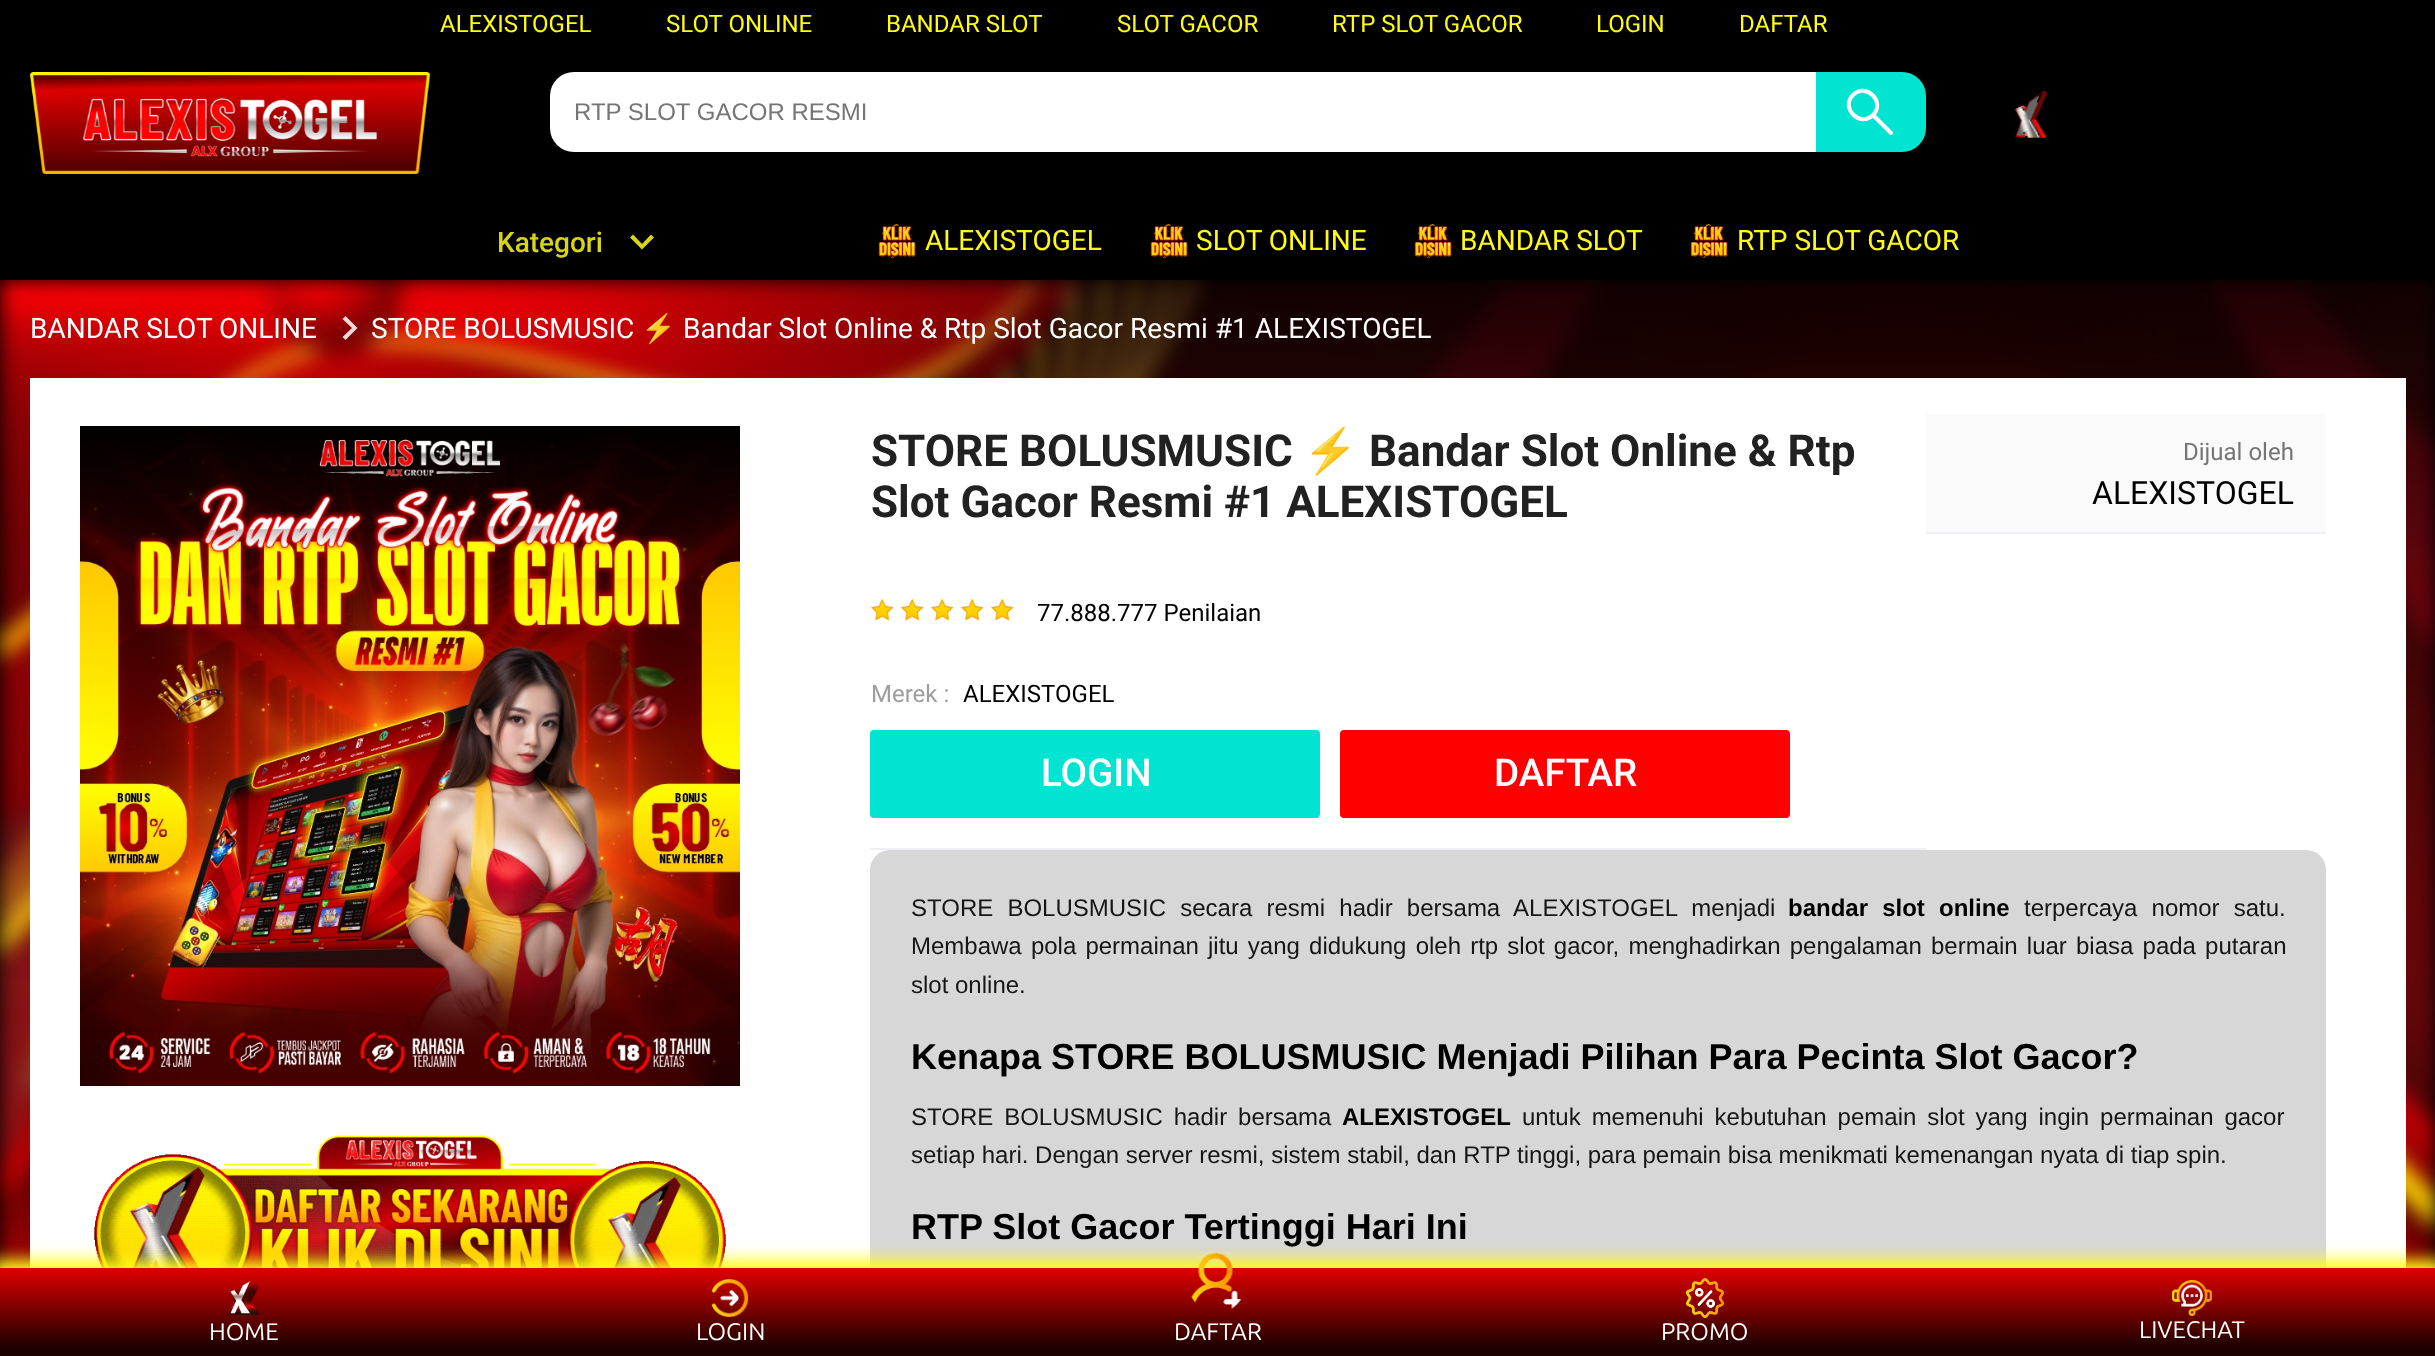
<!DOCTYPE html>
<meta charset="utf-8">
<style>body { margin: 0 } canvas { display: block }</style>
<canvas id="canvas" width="2435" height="1356"></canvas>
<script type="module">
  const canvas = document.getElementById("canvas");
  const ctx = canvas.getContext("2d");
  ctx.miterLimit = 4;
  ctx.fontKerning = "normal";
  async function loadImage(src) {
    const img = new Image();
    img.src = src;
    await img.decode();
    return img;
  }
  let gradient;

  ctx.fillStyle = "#000001";
  ctx.fillRect(0, 0, 2435, 1356);
  ctx.font = "24px Roboto";
  ctx.fillStyle = "#fffb16";
  ctx.fillText("ALEXISTOGEL", 440, 32);
  ctx.fillText("SLOT ONLINE", 666, 32);
  ctx.fillText("BANDAR SLOT", 886, 32);
  ctx.fillText("SLOT GACOR", 1117, 32);
  ctx.fillText("RTP SLOT GACOR", 1332, 32);
  ctx.fillText("LOGIN", 1596, 32);
  ctx.fillText("DAFTAR", 1739, 32);
  ctx.drawImage(await loadImage("img1.png"), 30, 72, 400, 102);
  ctx.fillStyle = "#ffffff";
  ctx.beginPath();
  ctx.roundRect(550, 72, 1266, 80, [24, 0, 0, 24]);
  ctx.fill();
  ctx.font = "24px Liberation Sans";
  ctx.fillStyle = "#757575";
  ctx.fillText("RTP SLOT GACOR RESMI", 574, 120);
  ctx.fillStyle = "#00e4d1";
  ctx.beginPath();
  ctx.roundRect(1816, 72, 110, 80, [0, 24, 24, 0]);
  ctx.fill();
  ctx.beginPath();
  ctx.moveTo(1873, 115);
  ctx.bezierCurveTo(1886, 102, 1866, 82, 1853, 95);
  ctx.bezierCurveTo(1840, 108, 1860, 128, 1873, 115);
  ctx.closePath();
  ctx.moveTo(1873.5, 115.5);
  ctx.lineTo(1891, 133);
  ctx.strokeStyle = "#ffffff";
  ctx.lineWidth = 4;
  ctx.lineCap = "round";
  ctx.lineJoin = "round";
  ctx.stroke();
  ctx.drawImage(await loadImage("img2.png"), 2014, 90, 34, 48);
  ctx.font = "500 28px 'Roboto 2'";
  ctx.fillStyle = "#d9d513";
  ctx.fillText("Kategori", 497, 252);
  ctx.beginPath();
  ctx.moveTo(651, 234.5);
  ctx.lineTo(654, 237.5);
  ctx.lineTo(642, 249.5);
  ctx.lineTo(630, 237.5);
  ctx.lineTo(633, 234.5);
  ctx.lineTo(642, 244);
  ctx.closePath();
  ctx.fill();
  ctx.drawImage(await loadImage("img3.png"), 878, 224, 38, 34);
  ctx.font = "28px Roboto";
  ctx.fillStyle = "#fffb16";
  ctx.fillText("ALEXISTOGEL", 925, 250);
  ctx.drawImage(await loadImage("img4.png"), 1150, 224, 38, 34);
  ctx.fillText("SLOT ONLINE", 1196, 250);
  ctx.drawImage(await loadImage("img3.png"), 1414, 224, 38, 34);
  ctx.fillText("BANDAR SLOT", 1460, 250);
  ctx.drawImage(await loadImage("img4.png"), 1690, 224, 38, 34);
  ctx.fillText("RTP SLOT GACOR", 1737, 250);
  ctx.drawImage(await loadImage("img5.png"), 0, 280, 2435, 988);
  ctx.fillStyle = "#ffffff";
  ctx.fillText("BANDAR SLOT ONLINE", 30, 338);
  ctx.fillStyle = "rgba(255, 255, 255, 0.85)";
  ctx.beginPath();
  ctx.moveTo(342.5, 319);
  ctx.lineTo(345.5, 316);
  ctx.lineTo(357.5, 328);
  ctx.lineTo(345.5, 340);
  ctx.lineTo(342.5, 337);
  ctx.lineTo(352, 328);
  ctx.closePath();
  ctx.fill();
  ctx.fillStyle = "#ffffff";
  ctx.fillText("STORE BOLUSMUSIC", 371, 338);
  ctx.font = "28px Noto Color Emoji";
  ctx.fillText("⚡️", 641, 338);
  ctx.font = "28px Roboto";
  ctx.fillText("Bandar Slot Online & Rtp Slot Gacor Resmi #1 ALEXISTOGEL", 683, 338);
  ctx.fillRect(30, 378, 2376, 890);
  ctx.drawImage(await loadImage("img6.png"), 80, 426, 660, 660);
  ctx.drawImage(await loadImage("img7.png"), 94, 1135, 632, 133);
  ctx.font = "bold 44px Roboto";
  ctx.fillStyle = "#212121";
  ctx.fillText("STORE BOLUSMUSIC", 871, 466);
  ctx.font = "bold 44px Noto Color Emoji";
  ctx.fillText("⚡️", 1303, 466);
  ctx.font = "bold 44px Roboto";
  ctx.fillText("Bandar Slot Online & Rtp", 1369, 466);
  ctx.fillText("Slot Gacor Resmi #1 ALEXISTOGEL", 871, 517);
  ctx.drawImage(await loadImage("img8.png"), 870, 598, 24, 23);
  ctx.drawImage(await loadImage("img8.png"), 900, 598, 24, 23);
  ctx.drawImage(await loadImage("img8.png"), 930, 598, 24, 23);
  ctx.drawImage(await loadImage("img8.png"), 960, 598, 24, 23);
  ctx.drawImage(await loadImage("img8.png"), 990, 598, 24, 23);
  ctx.font = "24px 'Roboto 2'";
  ctx.fillStyle = "#000001";
  ctx.fillText("77.888.777 Penilaian", 1037, 621);
  ctx.fillStyle = "#eff0f5";
  ctx.fillRect(870, 848, 1056, 2);
  ctx.fillStyle = "#9e9e9e";
  ctx.fillText("Merek :", 871, 702);
  ctx.fillStyle = "#000001";
  ctx.fillText("ALEXISTOGEL", 963, 702);
  ctx.fillStyle = "#00e4d1";
  ctx.beginPath();
  ctx.roundRect(871, 731, 448, 86, 3);
  ctx.fill();
  ctx.strokeStyle = "#00e4d1";
  ctx.lineWidth = 2;
  ctx.lineJoin = "miter";
  ctx.stroke();
  ctx.font = "500 38.5px Roboto";
  ctx.fillStyle = "#ffffff";
  ctx.fillText("LOGIN", 1041, 786);
  ctx.fillStyle = "#ff0000";
  ctx.beginPath();
  ctx.roundRect(1341, 731, 448, 86, 3);
  ctx.fill();
  ctx.strokeStyle = "#ff0000";
  ctx.stroke();
  ctx.fillStyle = "#ffffff";
  ctx.fillText("DAFTAR", 1494, 786);
  ctx.fillStyle = "#fafafa";
  ctx.fillRect(1926, 414, 400, 118);
  ctx.font = "24px 'Roboto 2'";
  ctx.fillStyle = "#757575";
  ctx.fillText("Dijual oleh", 2183, 460);
  ctx.font = "32px 'Roboto 2'";
  ctx.fillStyle = "#000001";
  ctx.fillText("ALEXISTOGEL", 2092, 504);
  ctx.fillStyle = "#eff0f5";
  ctx.fillRect(1926, 532, 400, 2);
  ctx.fillStyle = "#d7d7d7";
  ctx.beginPath();
  ctx.roundRect(870, 850, 1456, 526, 20);
  ctx.fill();
  ctx.wordSpacing = "7.5px";
  ctx.font = "24px Liberation Sans";
  ctx.fillStyle = "#161616";
  ctx.fillText("STORE BOLUSMUSIC secara resmi hadir bersama ALEXISTOGEL menjadi", 911, 916);
  ctx.font = "bold 24px Liberation Sans";
  ctx.fillStyle = "#000001";
  ctx.fillText("bandar slot online", 1788, 916);
  ctx.font = "24px Liberation Sans";
  ctx.fillStyle = "#161616";
  ctx.fillText("terpercaya nomor satu.", 2024, 916);
  ctx.wordSpacing = "2.5px";
  ctx.fillText("Membawa pola permainan jitu yang didukung oleh rtp slot gacor, menghadirkan pengalaman bermain luar biasa pada putaran", 911, 954);
  ctx.wordSpacing = "0px";
  ctx.fillText("slot online.", 911, 993);
  ctx.font = "bold 36px Liberation Sans";
  ctx.fillStyle = "#000001";
  ctx.fillText("Kenapa STORE BOLUSMUSIC Menjadi Pilihan Para Pecinta Slot Gacor?", 911, 1069);
  ctx.wordSpacing = "4.25px";
  ctx.font = "24px Liberation Sans";
  ctx.fillStyle = "#161616";
  ctx.fillText("STORE BOLUSMUSIC hadir bersama", 911, 1125);
  ctx.wordSpacing = "0px";
  ctx.font = "bold 24px Liberation Sans";
  ctx.fillStyle = "#000001";
  ctx.fillText("ALEXISTOGEL", 1342, 1125);
  ctx.wordSpacing = "4.25px";
  ctx.font = "24px Liberation Sans";
  ctx.fillStyle = "#161616";
  ctx.fillText("untuk memenuhi kebutuhan pemain slot yang ingin permainan gacor", 1522, 1125);
  ctx.wordSpacing = "0px";
  ctx.fillText("setiap hari. Dengan server resmi, sistem stabil, dan RTP tinggi, para pemain bisa menikmati kemenangan nyata di tiap spin.", 911, 1163);
  ctx.font = "bold 36px Liberation Sans";
  ctx.fillStyle = "#000001";
  ctx.fillText("RTP Slot Gacor Tertinggi Hari Ini", 911, 1239);
  ctx.fillStyle = "#fffb15";
  ctx.filter = "blur(8px)";
  ctx.beginPath();
  ctx.rect(-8, 1260, 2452, 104);
  ctx.fill();
  ctx.filter = "none";
  gradient = ctx.createLinearGradient(1218, 1268, 1218, 1356);
  gradient.addColorStop(0, "#e00000");
  gradient.addColorStop(0.9, "#1d0000");
  ctx.fillStyle = gradient;
  ctx.fillRect(0, 1268, 2435, 88);
  ctx.drawImage(await loadImage("img9.png"), 228, 1280, 32, 35);
  ctx.font = "24px Ubuntu";
  ctx.fillStyle = "#ffffff";
  ctx.fillText("HOME", 209, 1340);
  ctx.drawImage(await loadImage("img10.png"), 711, 1279, 38, 39);
  ctx.fillText("LOGIN", 696, 1340);
  ctx.drawImage(await loadImage("img11.png"), 1191, 1253, 51, 56);
  ctx.fillText("DAFTAR", 1174, 1340);
  ctx.drawImage(await loadImage("img12.png"), 1686, 1278, 38, 40);
  ctx.fillText("PROMO", 1661, 1340);
  ctx.drawImage(await loadImage("img13.png"), 2172, 1280, 40, 36);
  ctx.fillText("LIVECHAT", 2139, 1338);
</script>
